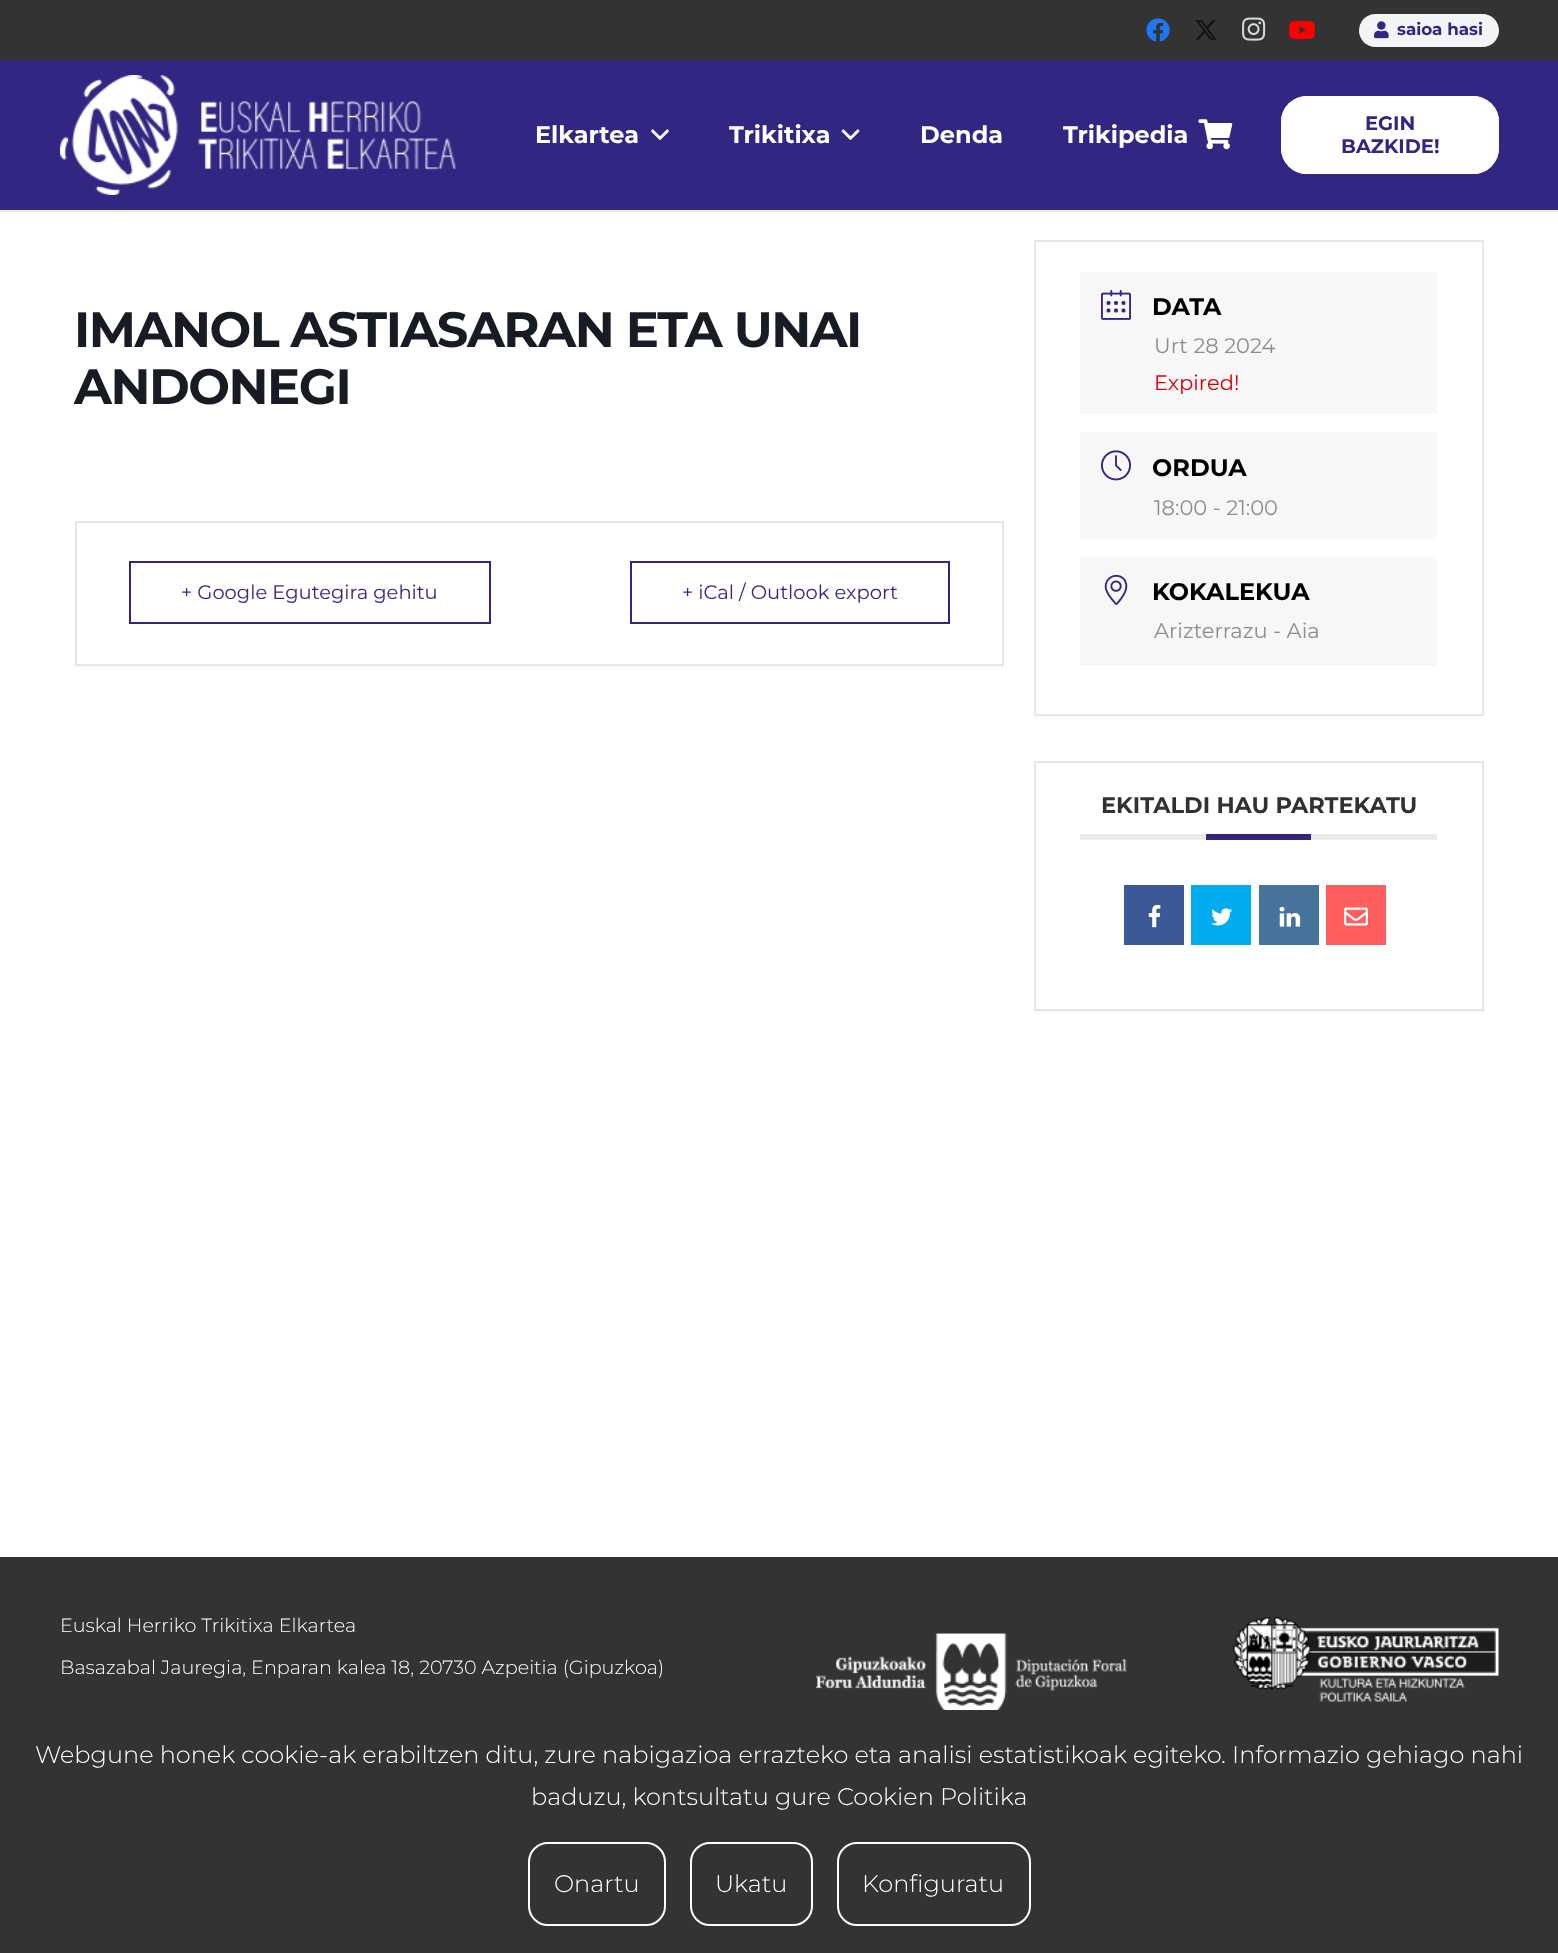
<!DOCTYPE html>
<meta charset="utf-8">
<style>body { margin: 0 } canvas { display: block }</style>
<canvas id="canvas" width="1558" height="1953"></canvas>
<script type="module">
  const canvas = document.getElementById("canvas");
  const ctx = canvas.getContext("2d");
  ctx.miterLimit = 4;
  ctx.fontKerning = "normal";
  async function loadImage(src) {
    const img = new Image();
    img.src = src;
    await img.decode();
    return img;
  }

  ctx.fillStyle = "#ffffff";
  ctx.fillRect(0, 0, 1558, 1953);
  ctx.fillStyle = "#333333";
  ctx.fillRect(0, 0, 1558, 60);
  ctx.drawImage(await loadImage("img1.png"), 1146, 18, 24, 24);
  ctx.drawImage(await loadImage("img2.png"), 1195, 20, 22, 20);
  ctx.drawImage(await loadImage("img3.png"), 1242, 17, 24, 24);
  ctx.drawImage(await loadImage("img4.png"), 1289, 21, 26, 18);
  ctx.fillStyle = "#f2f4f5";
  ctx.beginPath();
  ctx.roundRect(1359, 14, 140, 33, 16.5);
  ctx.fill();
  ctx.drawImage(await loadImage("img5.png"), 1374, 21, 15, 18);
  ctx.font = "bold 16.75px Montserrat";
  ctx.fillStyle = "#312682";
  ctx.fillText("saioa hasi", 1397, 35);
  ctx.fillStyle = "#ebebeb";
  ctx.beginPath();
  ctx.moveTo(0, 210);
  ctx.lineTo(0, 212);
  ctx.lineTo(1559, 212);
  ctx.lineTo(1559, 62);
  ctx.lineTo(1558, 62);
  ctx.lineTo(1558, 210);
  ctx.closePath();
  ctx.fill();
  ctx.fillStyle = "#312682";
  ctx.fillRect(0, 60, 1558, 150);
  ctx.drawImage(await loadImage("img6.png"), 60, 75, 396, 120);
  ctx.font = "bold 24px Montserrat";
  ctx.fillStyle = "#ffffff";
  ctx.fillText("Elkartea", 535, 143);
  ctx.drawImage(await loadImage("img7.png"), 651, 129, 18, 11);
  ctx.fillText("Trikitixa", 729, 143);
  ctx.drawImage(await loadImage("img8.png"), 841, 129, 19, 11);
  ctx.fillText("Denda", 920, 143);
  ctx.fillText("Trikipedia", 1063, 143);
  ctx.drawImage(await loadImage("img9.png"), 1198, 119, 35, 31);
  ctx.beginPath();
  ctx.roundRect(1281, 96, 218, 78, 26);
  ctx.fill();
  ctx.beginPath();
  ctx.roundRect(1282, 97, 216, 76, 25);
  ctx.strokeStyle = "#ffffff";
  ctx.lineWidth = 2;
  ctx.stroke();
  ctx.font = "bold 19.5px Montserrat";
  ctx.fillStyle = "#312682";
  ctx.fillText("EGIN", 1365, 130);
  ctx.fillText("BAZKIDE!", 1341, 153);
  ctx.letterSpacing = "-1.5px";
  ctx.font = "bold 49.5px Montserrat";
  ctx.fillStyle = "#171c24";
  ctx.fillText("IMANOL ASTIASARAN ETA UNAI", 74, 347);
  ctx.fillText("ANDONEGI", 74, 404);
  ctx.fillStyle = "#fbfbfb";
  ctx.beginPath();
  ctx.moveTo(75, 666);
  ctx.lineTo(75, 669);
  ctx.lineTo(1004, 669);
  ctx.lineTo(1004, 524);
  ctx.lineTo(1004, 666);
  ctx.closePath();
  ctx.fill();
  ctx.strokeStyle = "#e6e6e6";
  ctx.strokeRect(76, 522, 927, 143);
  ctx.strokeStyle = "#312682";
  ctx.strokeRect(130, 562, 360, 61);
  ctx.letterSpacing = "0px";
  ctx.font = "19.5px Montserrat";
  ctx.fillStyle = "#312682";
  ctx.fillText("+ Google Egutegira gehitu", 181, 599);
  ctx.strokeRect(631, 562, 318, 61);
  ctx.fillText("+ iCal / Outlook export", 682, 599);
  ctx.fillStyle = "#fbfbfb";
  ctx.beginPath();
  ctx.moveTo(1034, 716);
  ctx.lineTo(1034, 719);
  ctx.lineTo(1484, 719);
  ctx.lineTo(1484, 243);
  ctx.lineTo(1484, 716);
  ctx.closePath();
  ctx.fill();
  ctx.strokeStyle = "#e6e6e6";
  ctx.strokeRect(1035, 241, 448, 474);
  ctx.fillStyle = "#f7f7f7";
  ctx.fillRect(1080, 272, 357, 142);
  ctx.drawImage(await loadImage("img10.png"), 1101, 289, 30, 31);
  ctx.font = "bold 24px Montserrat";
  ctx.fillStyle = "#000000";
  ctx.fillText("DATA", 1152, 315);
  ctx.font = "21px Montserrat";
  ctx.fillStyle = "#8d8d8d";
  ctx.fillText("Urt 28 2024", 1154, 353);
  ctx.fillStyle = "#d8000c";
  ctx.fillText("Expired!", 1154, 390);
  ctx.fillStyle = "#f7f7f7";
  ctx.fillRect(1080, 432, 357, 107);
  ctx.drawImage(await loadImage("img11.png"), 1101, 450, 30, 31);
  ctx.font = "bold 24px Montserrat";
  ctx.fillStyle = "#000000";
  ctx.fillText("ORDUA", 1152, 476);
  ctx.font = "21px Montserrat";
  ctx.fillStyle = "#8d8d8d";
  ctx.fillText("18:00 - 21:00", 1154, 515);
  ctx.fillStyle = "#f7f7f7";
  ctx.fillRect(1080, 557, 357, 109);
  ctx.drawImage(await loadImage("img12.png"), 1104, 574, 24, 31);
  ctx.font = "bold 24px Montserrat";
  ctx.fillStyle = "#000000";
  ctx.fillText("KOKALEKUA", 1152, 600);
  ctx.font = "21px Montserrat";
  ctx.fillStyle = "#8d8d8d";
  ctx.fillText("Arizterrazu - Aia", 1154, 638);
  ctx.fillStyle = "#fbfbfb";
  ctx.beginPath();
  ctx.moveTo(1034, 1011);
  ctx.lineTo(1034, 1014);
  ctx.lineTo(1484, 1014);
  ctx.lineTo(1484, 764);
  ctx.lineTo(1484, 1011);
  ctx.closePath();
  ctx.fill();
  ctx.strokeRect(1035, 762, 448, 248);
  ctx.fillStyle = "#ebebeb";
  ctx.fillRect(1080, 834, 357, 6);
  ctx.font = "bold 22.5px Montserrat";
  ctx.fillStyle = "#313131";
  ctx.fillText("EKITALDI HAU PARTEKATU", 1101, 813);
  ctx.fillStyle = "#312682";
  ctx.fillRect(1206, 834, 105, 6);
  ctx.fillStyle = "#3b5996";
  ctx.fillRect(1124, 885, 60, 60);
  ctx.drawImage(await loadImage("img13.png"), 1148, 904, 13, 24);
  ctx.fillStyle = "#00acee";
  ctx.fillRect(1191, 885, 60, 60);
  ctx.drawImage(await loadImage("img14.png"), 1211, 908, 21, 18);
  ctx.fillStyle = "#457399";
  ctx.fillRect(1259, 885, 60, 60);
  ctx.drawImage(await loadImage("img15.png"), 1279, 906, 22, 21);
  ctx.fillStyle = "#ff5d5e";
  ctx.fillRect(1326, 885, 60, 60);
  ctx.drawImage(await loadImage("img16.png"), 1344, 907, 24, 19);
  ctx.fillStyle = "#333333";
  ctx.fillRect(0, 1557, 1558, 396);
  ctx.font = "300 19.2px Montserrat";
  ctx.fillStyle = "#ffffff";
  ctx.fillText("Euskal Herriko Trikitixa Elkartea", 60, 1632);
  ctx.fillText("Basazabal Jauregia, Enparan kalea 18, 20730 Azpeitia (Gipuzkoa)", 60, 1674);
  ctx.drawImage(await loadImage("img17.png"), 816, 1633, 311, 77);
  ctx.drawImage(await loadImage("img18.png"), 1233, 1617, 266, 85);
  ctx.font = "300 24px Montserrat";
  ctx.fillText("Webgune honek cookie-ak erabiltzen ditu, zure nabigazioa errazteko eta analisi estatistikoak egiteko. Informazio gehiago nahi", 35, 1763);
  ctx.fillText("baduzu, kontsultatu gure Cookien Politika", 531, 1805);
  ctx.beginPath();
  ctx.roundRect(529, 1843, 136, 82, 19);
  ctx.strokeStyle = "#ffffff";
  ctx.stroke();
  ctx.fillText("Onartu", 554, 1892);
  ctx.beginPath();
  ctx.roundRect(691, 1843, 121, 82, 19);
  ctx.stroke();
  ctx.fillText("Ukatu", 715, 1892);
  ctx.beginPath();
  ctx.roundRect(838, 1843, 192, 82, 19);
  ctx.stroke();
  ctx.fillText("Konfiguratu", 862, 1892);
</script>
